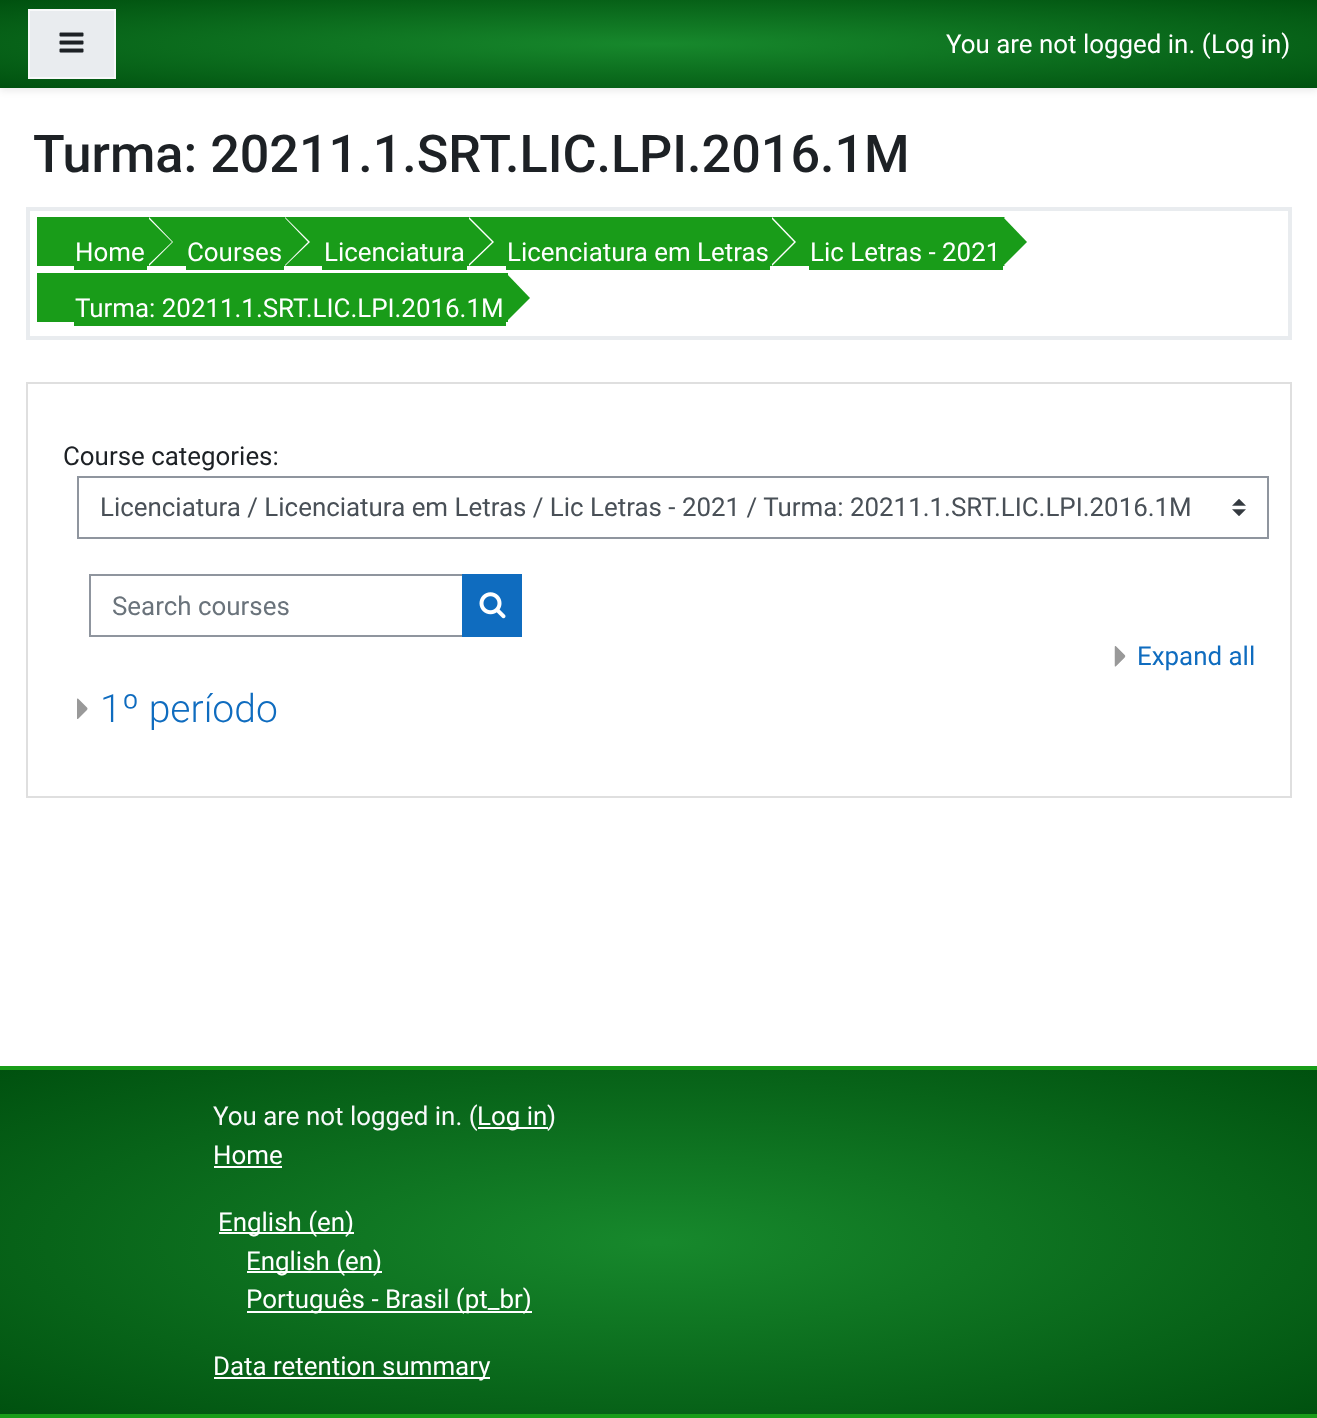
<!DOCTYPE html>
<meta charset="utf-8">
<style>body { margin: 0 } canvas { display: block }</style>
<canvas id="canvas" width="1317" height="1418"></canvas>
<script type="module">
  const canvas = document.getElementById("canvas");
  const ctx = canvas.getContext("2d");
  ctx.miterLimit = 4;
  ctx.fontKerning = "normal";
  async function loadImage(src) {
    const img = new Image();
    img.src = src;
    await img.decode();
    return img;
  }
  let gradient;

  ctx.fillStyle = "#ffffff";
  ctx.fillRect(0, 0, 1317, 1418);
  ctx.fillStyle = "rgba(0, 0, 0, 0.08)";
  ctx.filter = "blur(3.5px)";
  ctx.beginPath();
  ctx.rect(0, 4, 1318, 87);
  ctx.fill();
  ctx.filter = "none";
  gradient = ctx.createRadialGradient(659, 661.42, 0, 659, 661.42, 932);
  gradient.addColorStop(0.01, "#17882c");
  gradient.addColorStop(1, "#00510f");
  ctx.fillStyle = gradient;
  ctx.beginPath();
  ctx.rect(0, 0, 1317, 88);
  ctx.save();
  ctx.clip();
  ctx.scale(1, 62 / 932);
  ctx.fillRect(0, 0, 1317, 21316);
  ctx.restore();
  ctx.fillStyle = "#e9ecef";
  ctx.beginPath();
  ctx.rect(29, 10, 86, 68);
  ctx.fill();
  ctx.strokeStyle = "#f8f9fa";
  ctx.lineWidth = 2;
  ctx.stroke();
  ctx.drawImage(await loadImage("img1.png"), 59, 32, 25, 21);
  ctx.font = "25.9px Roboto";
  ctx.fillStyle = "#ffffff";
  ctx.fillText("You are not logged in. (", 946, 53);
  ctx.fillText("Log in)", 1211, 53);
  ctx.font = "500 52.1px Roboto";
  ctx.fillStyle = "#1d2125";
  ctx.fillText("Turma: 20211.1.SRT.LIC.LPI.2016.1M", 33, 172);
  ctx.strokeStyle = "#e9ecef";
  ctx.lineWidth = 4;
  ctx.strokeRect(28, 209, 1262, 129);
  ctx.fillStyle = "#199c19";
  ctx.fillRect(37, 217, 968, 49);
  ctx.fillStyle = "#ffffff";
  ctx.beginPath();
  ctx.moveTo(149, 266);
  ctx.lineTo(149, 217);
  ctx.lineTo(173, 242);
  ctx.closePath();
  ctx.fill();
  ctx.fillStyle = "#199c19";
  ctx.beginPath();
  ctx.moveTo(147, 266);
  ctx.lineTo(147, 217);
  ctx.lineTo(172, 242);
  ctx.closePath();
  ctx.fill();
  ctx.font = "25.9px Roboto";
  ctx.fillStyle = "#ffffff";
  ctx.fillText("Home", 75, 261);
  ctx.fillStyle = "#199c19";
  ctx.fillRect(74, 266, 73, 4);
  ctx.fillStyle = "#ffffff";
  ctx.beginPath();
  ctx.moveTo(285, 266);
  ctx.lineTo(285, 217);
  ctx.lineTo(310, 242);
  ctx.closePath();
  ctx.fill();
  ctx.fillStyle = "#199c19";
  ctx.beginPath();
  ctx.moveTo(284, 266);
  ctx.lineTo(284, 217);
  ctx.lineTo(308, 242);
  ctx.closePath();
  ctx.fill();
  ctx.fillStyle = "#ffffff";
  ctx.fillText("Courses", 187, 261);
  ctx.fillStyle = "#199c19";
  ctx.fillRect(186, 266, 98, 4);
  ctx.fillStyle = "#ffffff";
  ctx.beginPath();
  ctx.moveTo(469, 266);
  ctx.lineTo(469, 217);
  ctx.lineTo(494, 242);
  ctx.closePath();
  ctx.fill();
  ctx.fillStyle = "#199c19";
  ctx.beginPath();
  ctx.moveTo(467, 266);
  ctx.lineTo(467, 217);
  ctx.lineTo(492, 242);
  ctx.closePath();
  ctx.fill();
  ctx.fillStyle = "#ffffff";
  ctx.fillText("Licenciatura", 324, 261);
  ctx.fillStyle = "#199c19";
  ctx.fillRect(322, 266, 145, 4);
  ctx.fillStyle = "#ffffff";
  ctx.beginPath();
  ctx.moveTo(772, 266);
  ctx.lineTo(772, 217);
  ctx.lineTo(796, 242);
  ctx.closePath();
  ctx.fill();
  ctx.fillStyle = "#199c19";
  ctx.beginPath();
  ctx.moveTo(770, 266);
  ctx.lineTo(770, 217);
  ctx.lineTo(794, 242);
  ctx.closePath();
  ctx.fill();
  ctx.fillStyle = "#ffffff";
  ctx.fillText("Licenciatura em Letras", 507, 261);
  ctx.fillStyle = "#199c19";
  ctx.fillRect(506, 266, 264, 4);
  ctx.fillStyle = "#ffffff";
  ctx.beginPath();
  ctx.moveTo(1004, 266);
  ctx.lineTo(1004, 217);
  ctx.lineTo(1029, 242);
  ctx.closePath();
  ctx.fill();
  ctx.fillStyle = "#199c19";
  ctx.beginPath();
  ctx.moveTo(1003, 266);
  ctx.lineTo(1003, 217);
  ctx.lineTo(1027, 242);
  ctx.closePath();
  ctx.fill();
  ctx.fillStyle = "#ffffff";
  ctx.fillText("Lic Letras - 2021", 810, 261);
  ctx.fillStyle = "#199c19";
  ctx.fillRect(809, 266, 194, 4);
  ctx.fillRect(37, 273, 471, 49);
  ctx.fillStyle = "#ffffff";
  ctx.fillText("Turma: 20211.1.SRT.LIC.LPI.2016.1M", 75, 317);
  ctx.fillStyle = "#199c19";
  ctx.fillRect(74, 322, 432, 4);
  ctx.beginPath();
  ctx.moveTo(506, 322);
  ctx.lineTo(506, 273);
  ctx.lineTo(530, 298);
  ctx.closePath();
  ctx.fill();
  ctx.strokeStyle = "#dfdfdf";
  ctx.lineWidth = 2;
  ctx.strokeRect(27, 383, 1264, 414);
  ctx.fillStyle = "#1d2125";
  ctx.fillText("Course categories:", 63, 465);
  ctx.drawImage(await loadImage("img2.png"), 1232, 499, 14, 17);
  ctx.strokeStyle = "#8f959e";
  ctx.strokeRect(78, 477, 1190, 61);
  ctx.fillStyle = "#495057";
  ctx.fillText("Licenciatura / Licenciatura em Letras / Lic Letras - 2021 / Turma: 20211.1.SRT.LIC.LPI.2016.1M", 100, 516);
  ctx.strokeRect(90, 575, 373, 61);
  ctx.fillStyle = "#6a737b";
  ctx.fillText("Search courses", 112, 615);
  ctx.fillStyle = "#0f6cbf";
  ctx.fillRect(462, 574, 60, 63);
  ctx.drawImage(await loadImage("img3.png"), 479, 592, 27, 27);
  ctx.drawImage(await loadImage("img4.png"), 1114, 646, 12, 21);
  ctx.fillText("Expand all", 1137, 665);
  ctx.drawImage(await loadImage("img5.png"), 77, 698, 11, 21);
  ctx.font = "300 39px Roboto";
  ctx.fillText("1º período", 100, 722);
  gradient = ctx.createRadialGradient(659, 4744.03, 0, 659, 4744.03, 932);
  gradient.addColorStop(0.01, "#17882c");
  gradient.addColorStop(1, "#00510f");
  ctx.fillStyle = gradient;
  ctx.beginPath();
  ctx.rect(0, 1070, 1317, 344);
  ctx.save();
  ctx.clip();
  ctx.scale(1, 244 / 932);
  ctx.fillRect(0, 0, 1317, 5417);
  ctx.restore();
  ctx.fillStyle = "#199c19";
  ctx.fillRect(0, 1066, 1317, 4);
  ctx.fillRect(0, 1414, 1317, 4);
  ctx.font = "25.9px Roboto";
  ctx.fillStyle = "#f8f9fa";
  ctx.fillText("You are not logged in. (", 213, 1125);
  ctx.fillStyle = "#ffffff";
  ctx.fillRect(478, 1127, 70, 2);
  ctx.fillText("Log in", 477, 1125);
  ctx.fillStyle = "#f8f9fa";
  ctx.fillText(")", 547, 1125);
  ctx.fillStyle = "#ffffff";
  ctx.fillText("Home", 213, 1164);
  ctx.fillRect(214, 1166, 68, 2);
  ctx.fillRect(219, 1232, 135, 2);
  ctx.fillText("English (en)", 218, 1231);
  ctx.fillRect(247, 1271, 135, 2);
  ctx.fillText("English (en)", 246, 1270);
  ctx.fillRect(247, 1311, 285, 2);
  ctx.fillText("Português - Brasil (pt_br)", 246, 1308);
  ctx.fillRect(214, 1377, 276, 2);
  ctx.fillText("Data retention summary", 213, 1375);
</script>
